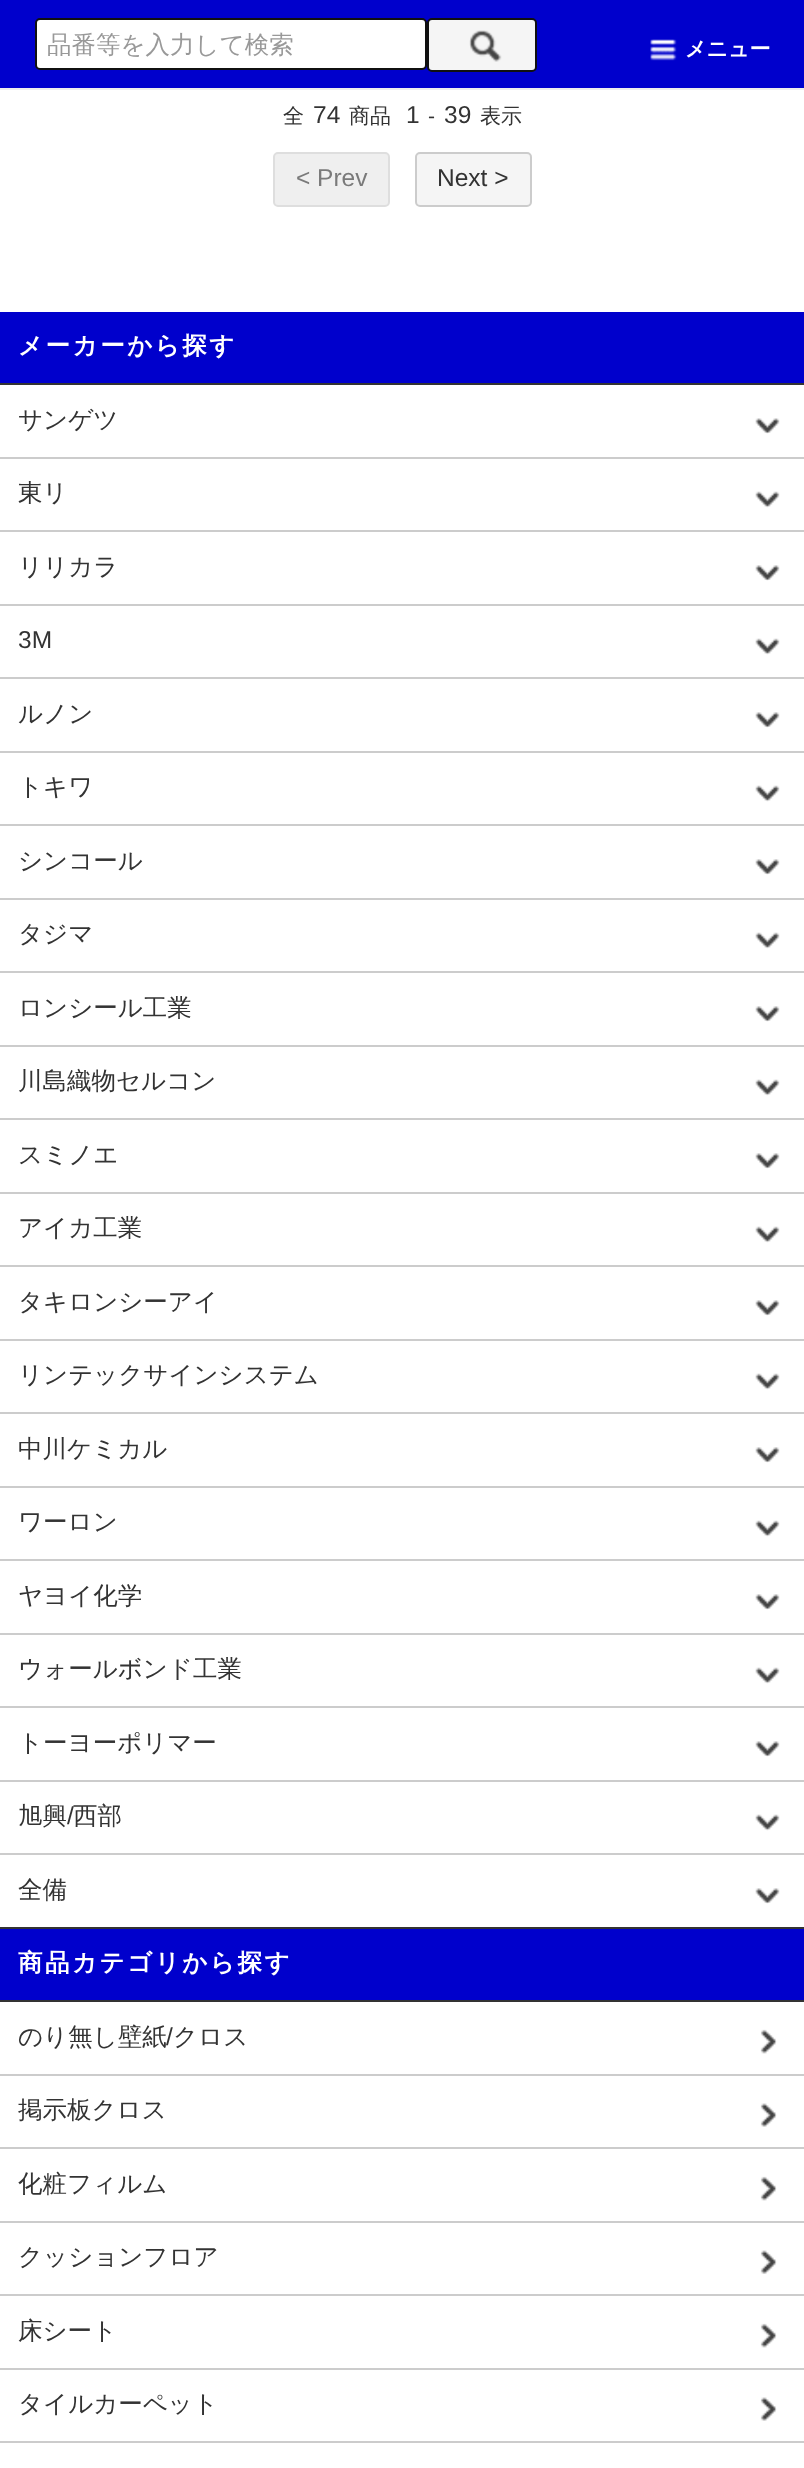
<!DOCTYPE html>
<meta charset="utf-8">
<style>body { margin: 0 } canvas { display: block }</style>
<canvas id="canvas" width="804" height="2468"></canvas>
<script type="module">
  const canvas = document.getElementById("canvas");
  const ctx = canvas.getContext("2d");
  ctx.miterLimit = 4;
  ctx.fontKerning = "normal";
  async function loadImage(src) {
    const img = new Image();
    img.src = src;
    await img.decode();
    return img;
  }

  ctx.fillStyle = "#ffffff";
  ctx.fillRect(0, 0, 804, 2468);
  ctx.fillStyle = "#0000cc";
  ctx.fillRect(0, 0, 804, 88);
  ctx.fillStyle = "#eeeeee";
  ctx.fillRect(0, 88, 804, 2);
  ctx.fillStyle = "#ffffff";
  ctx.beginPath();
  ctx.roundRect(36, 19, 390, 50, 4);
  ctx.fill();
  ctx.strokeStyle = "#101010";
  ctx.lineWidth = 2;
  ctx.stroke();
  ctx.font = "500 24.5px WenQuanYi Zen Hei";
  ctx.fillStyle = "#999999";
  ctx.fillText("品番等を入力して検索", 47, 53);
  ctx.fillStyle = "#f5f5f5";
  ctx.beginPath();
  ctx.roundRect(428, 19, 108, 52, 4);
  ctx.fill();
  ctx.stroke();
  ctx.drawImage(await loadImage("img1.png"), 469, 30, 33, 32);
  ctx.drawImage(await loadImage("img2.png"), 650, 39, 27, 22);
  ctx.font = "bold 21px WenQuanYi Zen Hei";
  ctx.fillStyle = "#ffffff";
  ctx.fillText("メニュー", 685, 56);
  ctx.font = "500 21px WenQuanYi Zen Hei";
  ctx.fillStyle = "#333333";
  ctx.fillText("全", 283, 123);
  ctx.font = "24.5px Liberation Sans";
  ctx.fillText("74", 313, 123);
  ctx.font = "500 21px WenQuanYi Zen Hei";
  ctx.fillText("商品", 349, 123);
  ctx.font = "24.5px Liberation Sans";
  ctx.fillText("1", 406, 123);
  ctx.font = "21px Liberation Sans";
  ctx.fillText("-", 428, 123);
  ctx.font = "24.5px Liberation Sans";
  ctx.fillText("39", 444, 123);
  ctx.font = "500 21px WenQuanYi Zen Hei";
  ctx.fillText("表示", 480, 123);
  ctx.fillStyle = "#efefef";
  ctx.beginPath();
  ctx.roundRect(274, 153, 115, 53, 4);
  ctx.fill();
  ctx.strokeStyle = "#dedede";
  ctx.stroke();
  ctx.font = "24.5px Liberation Sans";
  ctx.fillStyle = "#7a7a7a";
  ctx.fillText("< Prev", 296, 186);
  ctx.fillStyle = "#f5f5f5";
  ctx.beginPath();
  ctx.roundRect(416, 153, 115, 53, 4);
  ctx.fill();
  ctx.strokeStyle = "#cccccc";
  ctx.stroke();
  ctx.fillStyle = "#333333";
  ctx.fillText("Next >", 437, 186);
  ctx.fillStyle = "#0000cc";
  ctx.fillRect(0, 312, 804, 71);
  ctx.fillStyle = "#333333";
  ctx.fillRect(0, 383, 804, 2);
  ctx.letterSpacing = "2.5px";
  ctx.font = "bold 24.5px WenQuanYi Zen Hei";
  ctx.fillStyle = "#ffffff";
  ctx.fillText("メーカーから探す", 18, 354);
  ctx.fillStyle = "#333333";
  ctx.fillRect(0, 1927, 804, 2);
  ctx.letterSpacing = "0px";
  ctx.font = "500 24.5px WenQuanYi Zen Hei";
  ctx.fillText("サンゲツ", 18, 428);
  ctx.drawImage(await loadImage("img3.png"), 755, 418, 25, 16);
  ctx.fillStyle = "#cccccc";
  ctx.fillRect(0, 457, 804, 2);
  ctx.fillStyle = "#333333";
  ctx.fillText("東リ", 18, 501);
  ctx.drawImage(await loadImage("img4.png"), 755, 491, 25, 17);
  ctx.fillStyle = "#cccccc";
  ctx.fillRect(0, 530, 804, 2);
  ctx.fillStyle = "#333333";
  ctx.fillText("リリカラ", 18, 575);
  ctx.drawImage(await loadImage("img5.png"), 755, 565, 25, 16);
  ctx.fillStyle = "#cccccc";
  ctx.fillRect(0, 604, 804, 2);
  ctx.font = "24.5px Liberation Sans";
  ctx.fillStyle = "#333333";
  ctx.fillText("3M", 18, 648);
  ctx.drawImage(await loadImage("img4.png"), 755, 638, 25, 17);
  ctx.fillStyle = "#cccccc";
  ctx.fillRect(0, 677, 804, 2);
  ctx.font = "500 24.5px WenQuanYi Zen Hei";
  ctx.fillStyle = "#333333";
  ctx.fillText("ルノン", 18, 722);
  ctx.drawImage(await loadImage("img6.png"), 755, 712, 25, 16);
  ctx.fillStyle = "#cccccc";
  ctx.fillRect(0, 751, 804, 2);
  ctx.fillStyle = "#333333";
  ctx.fillText("トキワ", 18, 795);
  ctx.drawImage(await loadImage("img4.png"), 755, 785, 25, 17);
  ctx.fillStyle = "#cccccc";
  ctx.fillRect(0, 824, 804, 2);
  ctx.fillStyle = "#333333";
  ctx.fillText("シンコール", 18, 869);
  ctx.drawImage(await loadImage("img6.png"), 755, 859, 25, 16);
  ctx.fillStyle = "#cccccc";
  ctx.fillRect(0, 898, 804, 2);
  ctx.fillStyle = "#333333";
  ctx.fillText("タジマ", 18, 942);
  ctx.drawImage(await loadImage("img4.png"), 755, 932, 25, 17);
  ctx.fillStyle = "#cccccc";
  ctx.fillRect(0, 971, 804, 2);
  ctx.fillStyle = "#333333";
  ctx.fillText("ロンシール工業", 18, 1016);
  ctx.drawImage(await loadImage("img6.png"), 755, 1006, 25, 16);
  ctx.fillStyle = "#cccccc";
  ctx.fillRect(0, 1045, 804, 2);
  ctx.fillStyle = "#333333";
  ctx.fillText("川島織物セルコン", 18, 1089);
  ctx.drawImage(await loadImage("img4.png"), 755, 1079, 25, 17);
  ctx.fillStyle = "#cccccc";
  ctx.fillRect(0, 1118, 804, 2);
  ctx.fillStyle = "#333333";
  ctx.fillText("スミノエ", 18, 1163);
  ctx.drawImage(await loadImage("img6.png"), 755, 1153, 25, 16);
  ctx.fillStyle = "#cccccc";
  ctx.fillRect(0, 1192, 804, 2);
  ctx.fillStyle = "#333333";
  ctx.fillText("アイカ工業", 18, 1236);
  ctx.drawImage(await loadImage("img4.png"), 755, 1226, 25, 17);
  ctx.fillStyle = "#cccccc";
  ctx.fillRect(0, 1265, 804, 2);
  ctx.fillStyle = "#333333";
  ctx.fillText("タキロンシーアイ", 18, 1310);
  ctx.drawImage(await loadImage("img6.png"), 755, 1300, 25, 16);
  ctx.fillStyle = "#cccccc";
  ctx.fillRect(0, 1339, 804, 2);
  ctx.fillStyle = "#333333";
  ctx.fillText("リンテックサインシステム", 18, 1383);
  ctx.drawImage(await loadImage("img4.png"), 755, 1373, 25, 17);
  ctx.fillStyle = "#cccccc";
  ctx.fillRect(0, 1412, 804, 2);
  ctx.fillStyle = "#333333";
  ctx.fillText("中川ケミカル", 18, 1457);
  ctx.drawImage(await loadImage("img6.png"), 755, 1447, 25, 16);
  ctx.fillStyle = "#cccccc";
  ctx.fillRect(0, 1486, 804, 2);
  ctx.fillStyle = "#333333";
  ctx.fillText("ワーロン", 18, 1530);
  ctx.drawImage(await loadImage("img4.png"), 755, 1520, 25, 17);
  ctx.fillStyle = "#cccccc";
  ctx.fillRect(0, 1559, 804, 2);
  ctx.fillStyle = "#333333";
  ctx.fillText("ヤヨイ化学", 18, 1604);
  ctx.drawImage(await loadImage("img6.png"), 755, 1594, 25, 16);
  ctx.fillStyle = "#cccccc";
  ctx.fillRect(0, 1633, 804, 2);
  ctx.fillStyle = "#333333";
  ctx.fillText("ウォールボンド工業", 18, 1677);
  ctx.drawImage(await loadImage("img4.png"), 755, 1667, 25, 17);
  ctx.fillStyle = "#cccccc";
  ctx.fillRect(0, 1706, 804, 2);
  ctx.fillStyle = "#333333";
  ctx.fillText("トーヨーポリマー", 18, 1751);
  ctx.drawImage(await loadImage("img6.png"), 755, 1741, 25, 16);
  ctx.fillStyle = "#cccccc";
  ctx.fillRect(0, 1780, 804, 2);
  ctx.fillStyle = "#333333";
  ctx.fillText("旭興", 18, 1824);
  ctx.font = "24.5px Liberation Sans";
  ctx.fillText("/", 67, 1824);
  ctx.font = "500 24.5px WenQuanYi Zen Hei";
  ctx.fillText("西部", 73, 1824);
  ctx.drawImage(await loadImage("img4.png"), 755, 1814, 25, 17);
  ctx.fillStyle = "#cccccc";
  ctx.fillRect(0, 1853, 804, 2);
  ctx.fillStyle = "#333333";
  ctx.fillText("全備", 18, 1898);
  ctx.drawImage(await loadImage("img6.png"), 755, 1888, 25, 16);
  ctx.fillStyle = "#0000cc";
  ctx.fillRect(0, 1929, 804, 71);
  ctx.fillStyle = "#333333";
  ctx.fillRect(0, 2000, 804, 2);
  ctx.letterSpacing = "2.5px";
  ctx.font = "bold 24.5px WenQuanYi Zen Hei";
  ctx.fillStyle = "#ffffff";
  ctx.fillText("商品カテゴリから探す", 18, 1971);
  ctx.letterSpacing = "0px";
  ctx.font = "500 24.5px WenQuanYi Zen Hei";
  ctx.fillStyle = "#333333";
  ctx.fillText("のり無し壁紙", 18, 2045);
  ctx.font = "24.5px Liberation Sans";
  ctx.fillText("/", 166, 2045);
  ctx.font = "500 24.5px WenQuanYi Zen Hei";
  ctx.fillText("クロス", 173, 2045);
  ctx.drawImage(await loadImage("img7.png"), 760, 2029, 17, 25);
  ctx.fillStyle = "#cccccc";
  ctx.fillRect(0, 2074, 804, 2);
  ctx.fillStyle = "#333333";
  ctx.fillText("掲示板クロス", 18, 2118);
  ctx.drawImage(await loadImage("img8.png"), 760, 2103, 17, 24);
  ctx.fillStyle = "#cccccc";
  ctx.fillRect(0, 2147, 804, 2);
  ctx.fillStyle = "#333333";
  ctx.fillText("化粧フィルム", 18, 2192);
  ctx.drawImage(await loadImage("img7.png"), 760, 2176, 17, 25);
  ctx.fillStyle = "#cccccc";
  ctx.fillRect(0, 2221, 804, 2);
  ctx.fillStyle = "#333333";
  ctx.fillText("クッションフロア", 18, 2265);
  ctx.drawImage(await loadImage("img9.png"), 760, 2250, 17, 24);
  ctx.fillStyle = "#cccccc";
  ctx.fillRect(0, 2294, 804, 2);
  ctx.fillStyle = "#333333";
  ctx.fillText("床シート", 18, 2339);
  ctx.drawImage(await loadImage("img7.png"), 760, 2323, 17, 25);
  ctx.fillStyle = "#cccccc";
  ctx.fillRect(0, 2368, 804, 2);
  ctx.fillStyle = "#333333";
  ctx.fillText("タイルカーペット", 18, 2412);
  ctx.drawImage(await loadImage("img8.png"), 760, 2397, 17, 24);
  ctx.fillStyle = "#cccccc";
  ctx.fillRect(0, 2441, 804, 2);
</script>
